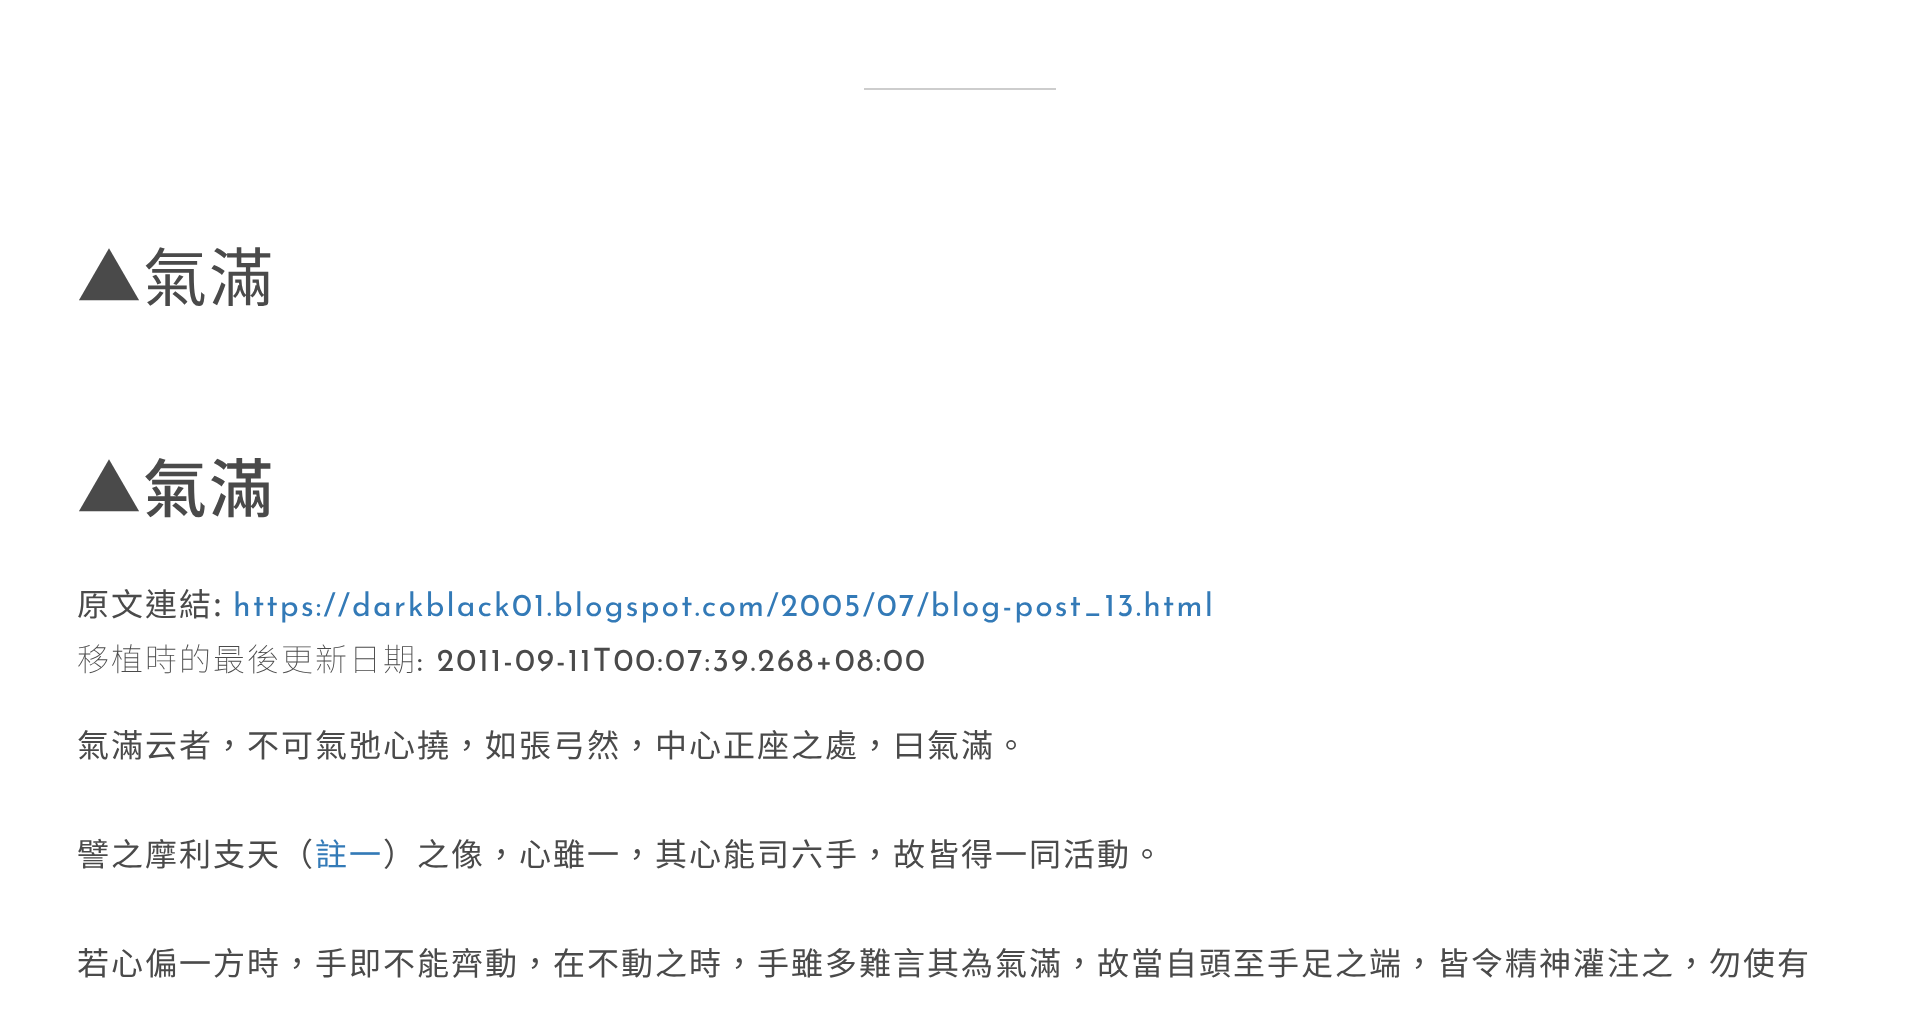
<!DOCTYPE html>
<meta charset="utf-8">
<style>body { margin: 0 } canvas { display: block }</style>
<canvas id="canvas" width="1920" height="1011"></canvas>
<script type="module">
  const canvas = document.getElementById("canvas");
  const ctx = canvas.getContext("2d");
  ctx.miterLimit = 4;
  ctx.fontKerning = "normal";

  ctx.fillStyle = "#ffffff";
  ctx.fillRect(0, 0, 1920, 1011);
  ctx.fillStyle = "#cdcdcd";
  ctx.fillRect(864, 88, 192, 2);
  ctx.letterSpacing = "2px";
  ctx.font = "64px Noto Sans TC";
  ctx.fillStyle = "#4a4a4a";
  ctx.fillText("▲氣滿", 77, 301);
  ctx.font = "500 64px Noto Sans TC";
  ctx.fillText("▲氣滿", 77, 512);
  ctx.font = "32px Noto Sans TC";
  ctx.fillText("原文連結:", 77, 616);
  ctx.font = "32px Josefin Sans";
  ctx.fillStyle = "#337ab7";
  ctx.fillText("https://darkblack01.blogspot.com/2005/07/blog-post_13.html", 233, 616);
  ctx.font = "100 32px Noto Sans TC";
  ctx.fillStyle = "#4a4a4a";
  ctx.fillText("移植時的最後更新日期", 77, 671);
  ctx.font = "32px Josefin Sans";
  ctx.fillText(": 2011-09-11T00:07:39.268+08:00", 417, 671);
  ctx.font = "32px Noto Sans TC";
  ctx.fillText("氣滿云者，不可氣弛心撓，如張弓然，中心正座之處，曰氣滿。", 77, 757);
  ctx.fillText("譬之摩利支天（", 77, 866);
  ctx.fillStyle = "#337ab7";
  ctx.fillText("註一", 315, 866);
  ctx.fillStyle = "#4a4a4a";
  ctx.fillText("）之像，心雖一，其心能司六手，故皆得一同活動。", 383, 866);
  ctx.fillText("若心偏一方時，手即不能齊動，在不動之時，手雖多難言其為氣滿，故當自頭至手足之端，皆令精神灌注之，勿使有", 77, 975);
</script>
